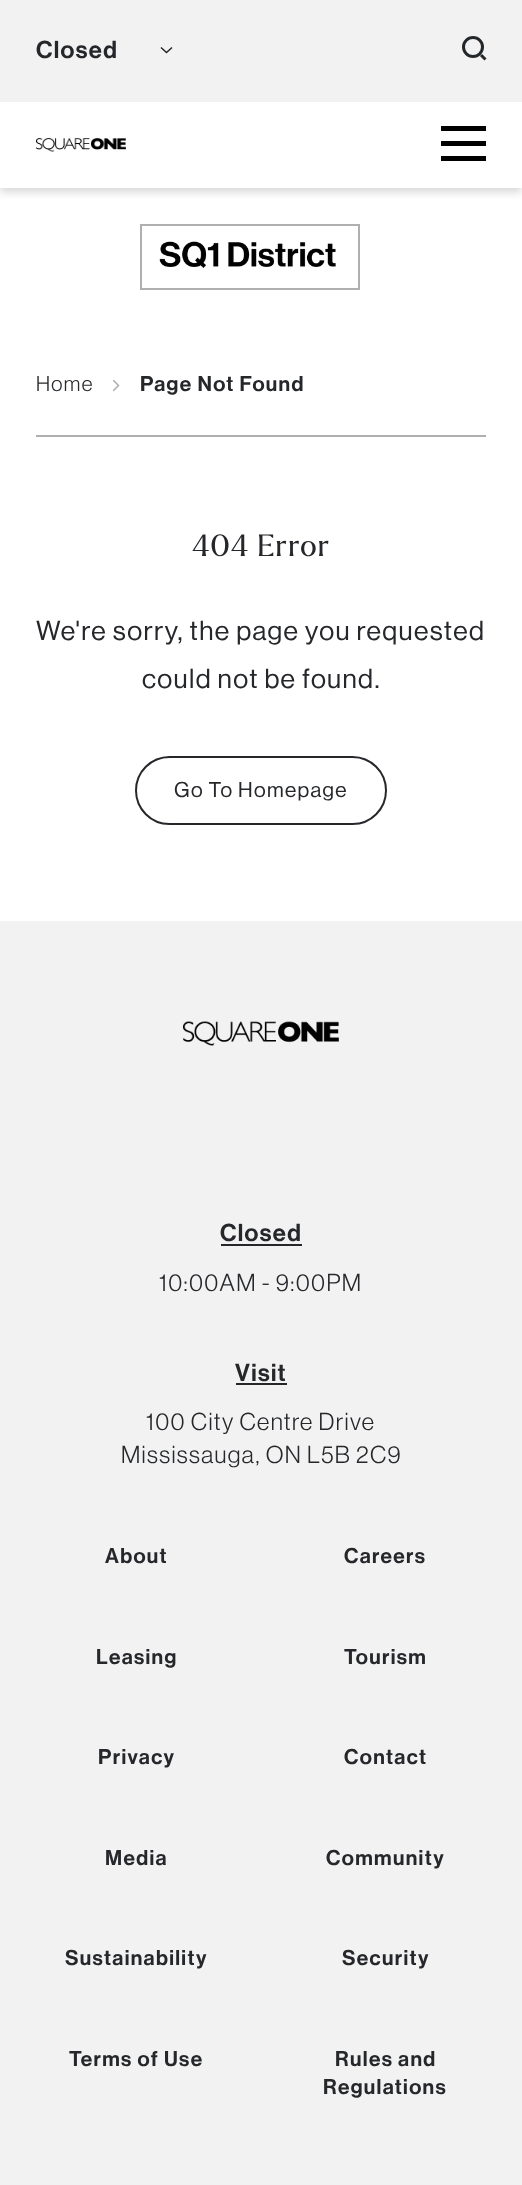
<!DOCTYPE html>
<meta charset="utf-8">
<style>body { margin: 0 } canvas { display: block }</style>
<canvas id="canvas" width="522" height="2185"></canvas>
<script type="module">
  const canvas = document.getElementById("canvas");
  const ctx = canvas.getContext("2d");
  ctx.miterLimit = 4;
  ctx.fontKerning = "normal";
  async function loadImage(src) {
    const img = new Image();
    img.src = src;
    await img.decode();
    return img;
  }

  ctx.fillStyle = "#ffffff";
  ctx.fillRect(0, 0, 522, 2185);
  ctx.fillStyle = "rgba(0, 0, 0, 0.16)";
  ctx.filter = "blur(4.5px)";
  ctx.beginPath();
  ctx.rect(0, 107, 522, 85);
  ctx.fill();
  ctx.filter = "none";
  ctx.fillStyle = "#f2f2f2";
  ctx.fillRect(0, 0, 522, 102);
  ctx.letterSpacing = "1.35px";
  ctx.font = "500 24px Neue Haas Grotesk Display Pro";
  ctx.fillStyle = "#25272a";
  ctx.fillText("Closed", 36, 58);
  ctx.beginPath();
  ctx.moveTo(172, 47.5);
  ctx.lineTo(166.5, 52.5);
  ctx.lineTo(161, 47.5);
  ctx.strokeStyle = "#24272a";
  ctx.lineWidth = 1.5;
  ctx.stroke();
  ctx.beginPath();
  ctx.arc(473, 47, 9.5, 0, Math.PI * 2);
  ctx.lineWidth = 3;
  ctx.stroke();
  ctx.beginPath();
  ctx.moveTo(481, 55);
  ctx.lineTo(485.5, 59.5);
  ctx.stroke();
  ctx.fillStyle = "#ffffff";
  ctx.fillRect(0, 102, 522, 86);
  ctx.drawImage(await loadImage("img1.png"), 36, 138, 90, 14);
  ctx.fillStyle = "#000000";
  ctx.fillRect(441, 126, 45, 5);
  ctx.fillRect(441, 141, 45, 5);
  ctx.fillRect(441, 156, 45, 5);
  ctx.strokeStyle = "#b0aeaf";
  ctx.lineWidth = 2;
  ctx.strokeRect(141, 225, 218, 64);
  ctx.drawImage(await loadImage("img2.png"), 159, 241, 177, 27);
  ctx.font = "21px Neue Haas Grotesk Display Pro";
  ctx.fillStyle = "#25272a";
  ctx.fillText("Home", 36, 391);
  ctx.save();
  ctx.beginPath();
  ctx.rect(113, 380, 7, 12);
  ctx.clip();
  ctx.beginPath();
  ctx.moveTo(113, 380);
  ctx.lineTo(118.5, 385.5);
  ctx.lineTo(113, 391);
  ctx.lineWidth = 1.5;
  ctx.stroke();
  ctx.restore();
  ctx.font = "500 21px Neue Haas Grotesk Display Pro";
  ctx.fillText("Page Not Found", 140, 391);
  ctx.fillStyle = "#b0aeaf";
  ctx.fillRect(36, 435, 450, 2);
  ctx.font = "30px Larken";
  ctx.fillStyle = "#25272a";
  ctx.fillText("404 Error", 192, 556);
  ctx.font = "500 27px 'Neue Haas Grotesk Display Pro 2'";
  ctx.fillText("We're sorry, the page you requested", 36, 640);
  ctx.fillText("could not be found.", 142, 688);
  ctx.beginPath();
  ctx.roundRect(136, 757, 250, 67, 33.5);
  ctx.strokeStyle = "#25272a";
  ctx.stroke();
  ctx.font = "500 21px 'Neue Haas Grotesk Display Pro 2'";
  ctx.fillText("Go To Homepage", 174, 797);
  ctx.fillStyle = "#f2f2f2";
  ctx.fillRect(0, 921, 522, 1264);
  ctx.drawImage(await loadImage("img3.png"), 183, 1021, 156, 25);
  ctx.font = "500 24px Neue Haas Grotesk Display Pro";
  ctx.fillStyle = "#25272a";
  ctx.fillText("Closed", 220, 1241);
  ctx.fillRect(221, 1244, 81, 2);
  ctx.font = "24px Neue Haas Grotesk Display Pro";
  ctx.fillText("10:00AM - 9:00PM", 159, 1291);
  ctx.font = "500 24px Neue Haas Grotesk Display Pro";
  ctx.fillText("Visit", 235, 1381);
  ctx.fillRect(236, 1383, 51, 2);
  ctx.font = "24px Neue Haas Grotesk Display Pro";
  ctx.fillText("100 City Centre Drive", 146, 1430);
  ctx.fillText("Mississauga, ON L5B 2C9", 121, 1463);
  ctx.font = "500 21px Neue Haas Grotesk Display Pro";
  ctx.fillText("About", 105, 1563);
  ctx.fillText("Careers", 344, 1563);
  ctx.fillText("Leasing", 96, 1664);
  ctx.fillText("Tourism", 344, 1664);
  ctx.fillText("Privacy", 98, 1764);
  ctx.fillText("Contact", 344, 1764);
  ctx.fillText("Media", 105, 1865);
  ctx.fillText("Community", 326, 1865);
  ctx.fillText("Sustainability", 65, 1965);
  ctx.fillText("Security", 342, 1965);
  ctx.fillText("Terms of Use", 69, 2066);
  ctx.fillText("Rules and", 335, 2066);
  ctx.fillText("Regulations", 323, 2094);
</script>
